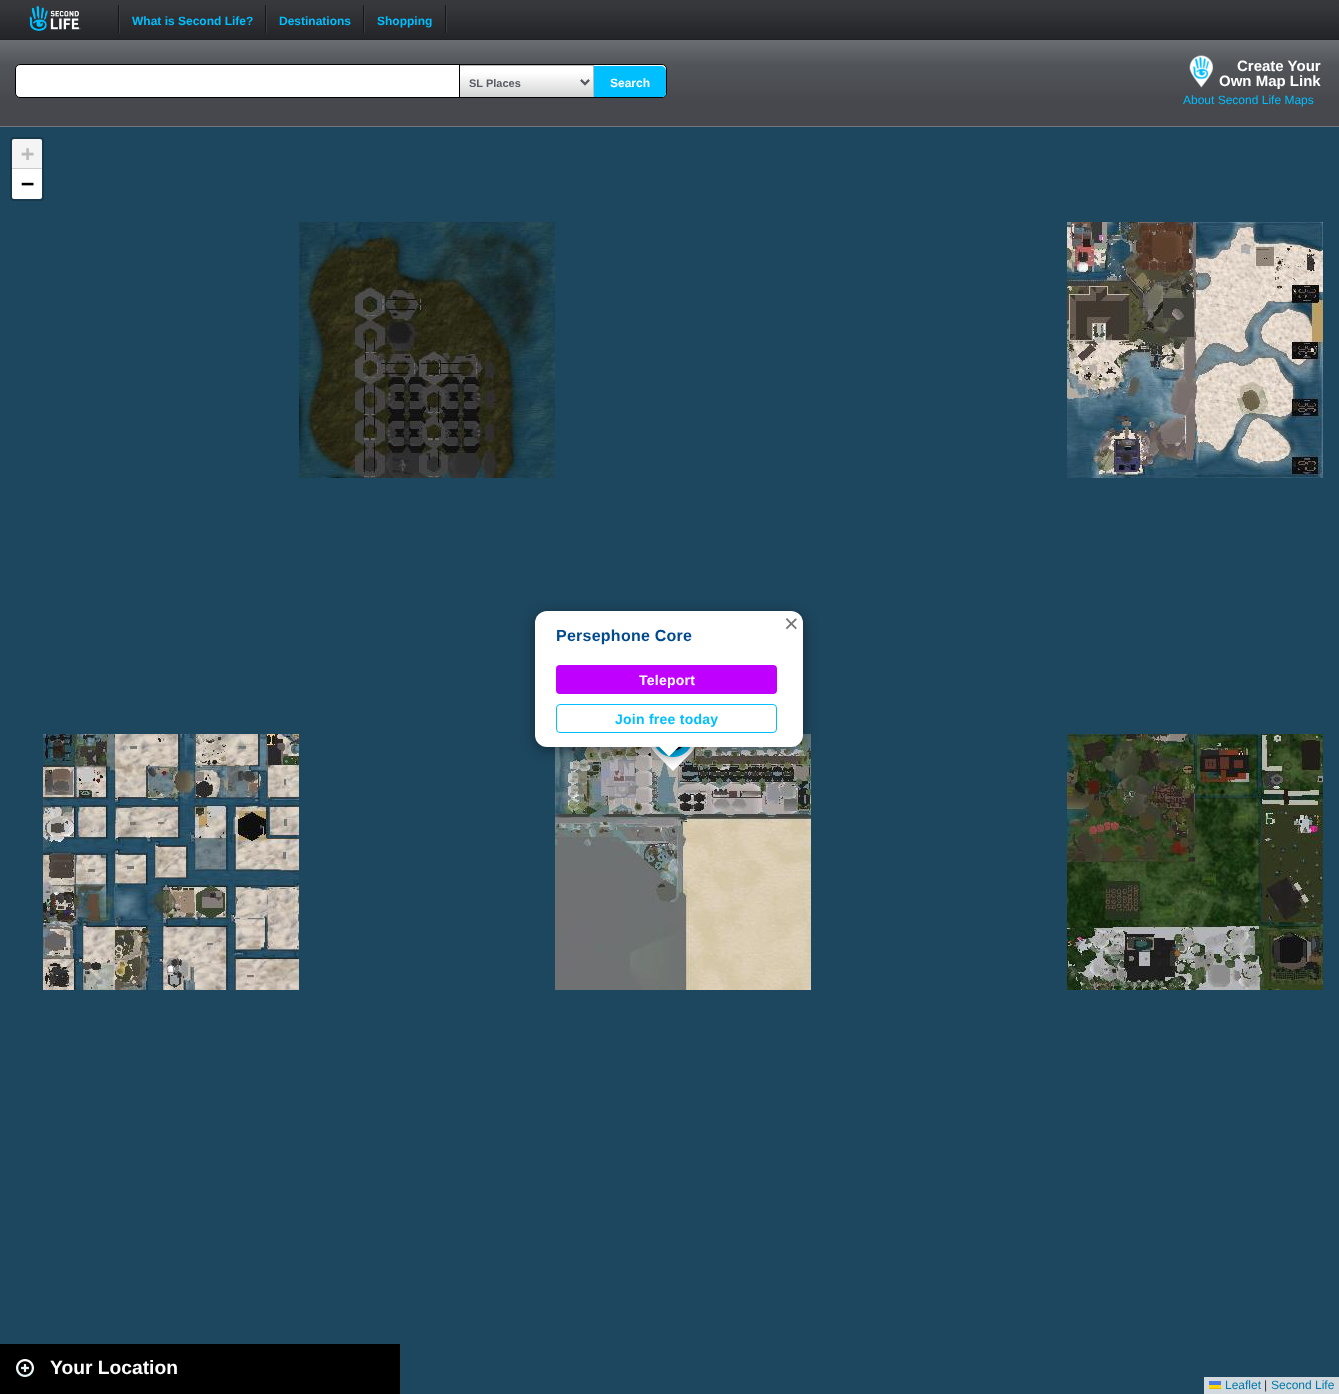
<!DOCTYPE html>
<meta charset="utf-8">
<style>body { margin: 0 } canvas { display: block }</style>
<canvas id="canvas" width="1339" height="1394"></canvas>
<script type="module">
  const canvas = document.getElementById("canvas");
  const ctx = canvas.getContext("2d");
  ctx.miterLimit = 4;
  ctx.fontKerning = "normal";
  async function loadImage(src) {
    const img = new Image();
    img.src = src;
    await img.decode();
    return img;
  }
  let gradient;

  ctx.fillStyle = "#1d475f";
  ctx.fillRect(0, 0, 1339, 1394);
  ctx.drawImage(await loadImage("img1.png"), 0, 0, 1339, 40);
  ctx.drawImage(await loadImage("img2.png"), 29, 6, 52, 25);
  ctx.fillStyle = "#3a3e42";
  ctx.fillRect(119, 5, 1, 28);
  ctx.fillStyle = "#161616";
  ctx.fillRect(118, 5, 1, 28);
  ctx.font = "bold 12px Liberation Sans";
  ctx.fillStyle = "#00bfff";
  ctx.fillText("What is Second Life?", 132, 25);
  ctx.fillStyle = "#3a3e42";
  ctx.fillRect(266, 5, 1, 28);
  ctx.fillStyle = "#161616";
  ctx.fillRect(265, 5, 1, 28);
  ctx.fillStyle = "#00bfff";
  ctx.fillText("Destinations", 279, 25);
  ctx.fillStyle = "#3a3e42";
  ctx.fillRect(364, 5, 1, 28);
  ctx.fillStyle = "#161616";
  ctx.fillRect(363, 5, 1, 28);
  ctx.fillStyle = "#00bfff";
  ctx.fillText("Shopping", 377, 25);
  ctx.fillStyle = "#3a3e42";
  ctx.fillRect(446, 5, 1, 28);
  ctx.fillStyle = "#161616";
  ctx.fillRect(445, 5, 1, 28);
  gradient = ctx.createLinearGradient(0, 126, 0, 40);
  gradient.addColorStop(0.29, "#47484d");
  gradient.addColorStop(0.71, "#515559");
  gradient.addColorStop(1, "#6b6e73");
  ctx.fillStyle = gradient;
  ctx.fillRect(0, 40, 1339, 86);
  ctx.fillStyle = "#72777e";
  ctx.fillRect(0, 126, 1339, 1);
  ctx.fillStyle = "#ffffff";
  ctx.beginPath();
  ctx.roundRect(15.5, 64.5, 651, 33, 4.5);
  ctx.fill();
  ctx.strokeStyle = "#000000";
  ctx.stroke();
  ctx.drawImage(await loadImage("img3.png"), 460, 66, 133, 31);
  ctx.fillStyle = "#bbbbbb";
  ctx.fillRect(459, 65, 135, 1);
  ctx.fillRect(593, 65, 1, 32);
  ctx.fillStyle = "#000000";
  ctx.fillRect(459, 65, 1, 32);
  ctx.beginPath();
  ctx.moveTo(581, 80);
  ctx.lineTo(585, 84);
  ctx.lineTo(589, 80);
  ctx.strokeStyle = "#595c62";
  ctx.lineWidth = 2;
  ctx.stroke();
  ctx.font = "bold 11px Liberation Sans";
  ctx.fillStyle = "#595c62";
  ctx.fillText("SL Places", 469, 87);
  ctx.save();
  ctx.beginPath();
  ctx.roundRect(16, 65, 650, 32, 4);
  ctx.clip();
  ctx.fillStyle = "#00bfff";
  ctx.beginPath();
  ctx.roundRect(594, 66, 72, 34, [0, 5, 5, 0]);
  ctx.fill();
  ctx.restore();
  ctx.font = "bold 12px Liberation Sans";
  ctx.fillStyle = "#ffffff";
  ctx.fillText("Search", 610, 87);
  ctx.drawImage(await loadImage("img4.png"), 1189, 55, 25, 33);
  ctx.font = "bold 15px Liberation Sans";
  ctx.fillText("Create Your", 1237, 71);
  ctx.fillText("Own Map Link", 1219, 86);
  ctx.font = "12px Liberation Sans";
  ctx.fillStyle = "#00bfff";
  ctx.fillText("About Second Life Maps", 1183, 104);
  ctx.beginPath();
  ctx.roundRect(11, 138, 32, 62, 3);
  ctx.strokeStyle = "#17394c";
  ctx.stroke();
  ctx.fillStyle = "#f4f4f4";
  ctx.beginPath();
  ctx.roundRect(12, 139, 30, 30, [2, 2, 0, 0]);
  ctx.fill();
  ctx.fillStyle = "#cccccc";
  ctx.fillRect(12, 168, 30, 1);
  ctx.font = "bold 22px DejaVu Sans Mono";
  ctx.fillStyle = "#bbbbbb";
  ctx.fillText("+", 21, 161);
  ctx.fillStyle = "#ffffff";
  ctx.beginPath();
  ctx.roundRect(12, 169, 30, 30, [0, 0, 2, 2]);
  ctx.fill();
  ctx.fillStyle = "#000000";
  ctx.fillText("−", 21, 191);
  ctx.fillStyle = "#d2dadf";
  ctx.fillRect(1204, 1377, 135, 17);
  ctx.font = "12px Liberation Sans";
  ctx.fillStyle = "#0078a8";
  ctx.fillText("Leaflet", 1225, 1389);
  ctx.fillStyle = "#4c7be1";
  ctx.fillRect(1209, 1381, 12, 4);
  ctx.fillStyle = "#ffd500";
  ctx.fillRect(1209, 1385, 12, 3);
  ctx.fillStyle = "#e0bc00";
  ctx.fillRect(1209, 1388, 12, 1);
  ctx.fillStyle = "#333333";
  ctx.fillText("|", 1264, 1389);
  ctx.fillStyle = "#0078a8";
  ctx.fillText("Second Life", 1271, 1389);
  ctx.drawImage(await loadImage("img5.png"), 299, 222, 256, 256);
  ctx.drawImage(await loadImage("img6.png"), 1067, 222, 256, 256);
  ctx.drawImage(await loadImage("img7.png"), 43, 734, 256, 256);
  ctx.drawImage(await loadImage("img8.png"), 555, 734, 256, 256);
  ctx.drawImage(await loadImage("img9.png"), 1067, 734, 256, 256);
  ctx.drawImage(await loadImage("img10.png"), 651, 747, 44, 24);
  ctx.fillStyle = "rgba(0, 0, 0, 0.4)";
  ctx.filter = "blur(7px)";
  ctx.beginPath();
  ctx.roundRect(535, 614, 268, 136, 12);
  ctx.fill();
  ctx.filter = "none";
  ctx.fillStyle = "#ffffff";
  ctx.beginPath();
  ctx.roundRect(535, 611, 268, 136, 12);
  ctx.fill();
  ctx.font = "25px Liberation Sans";
  ctx.fillStyle = "#757575";
  ctx.fillText("×", 784, 632);
  ctx.letterSpacing = "0.25px";
  ctx.font = "bold 16px Liberation Sans";
  ctx.fillStyle = "#014a8e";
  ctx.fillText("Persephone Core", 556, 641);
  ctx.fillStyle = "#bf00ff";
  ctx.beginPath();
  ctx.roundRect(556, 665, 221, 29, 4);
  ctx.fill();
  ctx.font = "bold 14px Liberation Sans";
  ctx.fillStyle = "#ffffff";
  ctx.fillText("Teleport", 639, 685);
  ctx.beginPath();
  ctx.roundRect(556.5, 704.5, 220, 28, 3.5);
  ctx.strokeStyle = "#00bfff";
  ctx.lineWidth = 1;
  ctx.stroke();
  ctx.fillStyle = "#00bfff";
  ctx.fillText("Join free today", 615, 724);
  ctx.save();
  ctx.beginPath();
  ctx.rect(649, 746, 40, 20);
  ctx.clip();
  ctx.fillStyle = "rgba(0, 0, 0, 0.4)";
  ctx.filter = "blur(7px)";
  ctx.beginPath();
  ctx.rect(661, 739, 17, 17);
  ctx.fill();
  ctx.filter = "none";
  ctx.restore();
  ctx.save();
  ctx.beginPath();
  ctx.rect(649, 746, 40, 20);
  ctx.clip();
  ctx.fillStyle = "#ffffff";
  ctx.beginPath();
  ctx.moveTo(669, 732.5);
  ctx.lineTo(681, 744.5);
  ctx.lineTo(669, 756.5);
  ctx.lineTo(657, 744.5);
  ctx.closePath();
  ctx.fill();
  ctx.restore();
  ctx.fillStyle = "#000000";
  ctx.fillRect(0, 1344, 400, 50);
  ctx.drawImage(await loadImage("img11.png"), 16, 1359, 18, 18);
  ctx.letterSpacing = "0px";
  ctx.font = "bold 19.25px Liberation Sans";
  ctx.fillStyle = "#ffffff";
  ctx.fillText("Your Location", 50, 1374);
</script>
